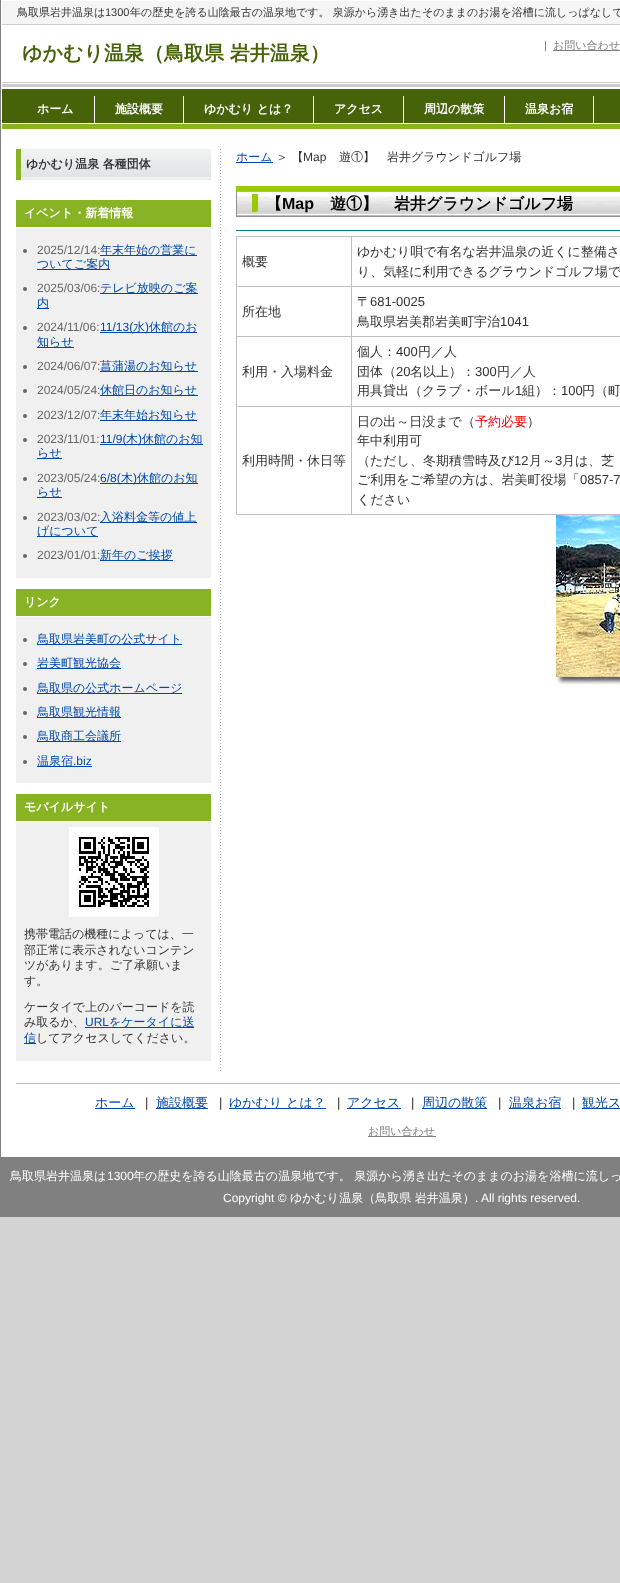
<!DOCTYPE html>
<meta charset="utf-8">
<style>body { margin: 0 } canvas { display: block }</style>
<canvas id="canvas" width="620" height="1583"></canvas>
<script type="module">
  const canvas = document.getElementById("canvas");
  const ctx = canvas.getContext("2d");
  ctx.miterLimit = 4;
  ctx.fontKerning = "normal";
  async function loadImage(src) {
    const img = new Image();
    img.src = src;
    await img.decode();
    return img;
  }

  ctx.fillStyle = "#d3d3d3";
  ctx.fillRect(0, 0, 620, 1583);
  ctx.fillStyle = "#ffffff";
  ctx.fillRect(1, 0, 619, 1157);
  ctx.fillStyle = "#808080";
  ctx.fillRect(0, 1157, 620, 60);
  ctx.fillRect(0, 0, 1, 1158);
  ctx.fillStyle = "#f5f5f5";
  ctx.fillRect(2, 1, 618, 23);
  ctx.fillStyle = "#cccccc";
  ctx.fillRect(2, 24, 618, 1);
  ctx.font = "500 11px WenQuanYi Zen Hei";
  ctx.fillStyle = "#333333";
  ctx.fillText("鳥取県岩井温泉は", 17, 16);
  ctx.font = "11px Liberation Sans";
  ctx.fillText("1300", 105, 16);
  ctx.font = "500 11px WenQuanYi Zen Hei";
  ctx.fillText("年の歴史を誇る山陰最古の温泉地です。 泉源から湧き出たそのままのお湯を浴槽に流しっぱなしで", 130, 16);
  ctx.fillStyle = "#cccccc";
  ctx.fillRect(2, 82, 618, 1);
  ctx.font = "bold 20px WenQuanYi Zen Hei";
  ctx.fillStyle = "#466309";
  ctx.fillText("ゆかむり温泉（鳥取県 岩井温泉）", 22, 60);
  ctx.font = "11px Liberation Sans";
  ctx.fillStyle = "#808080";
  ctx.fillText("|", 544, 49);
  ctx.fillRect(553, 50, 67, 1);
  ctx.font = "500 11px WenQuanYi Zen Hei";
  ctx.fillText("お問い合わせ", 553, 49);
  ctx.fillStyle = "#88b325";
  ctx.fillRect(2, 124, 618, 5);
  ctx.fillStyle = "#cccccc";
  ctx.fillRect(2, 84, 618, 3);
  ctx.fillStyle = "#466309";
  ctx.fillRect(2, 89, 618, 34);
  ctx.fillStyle = "#ffffff";
  ctx.fillRect(94, 96, 1, 27);
  ctx.font = "bold 12px WenQuanYi Zen Hei";
  ctx.fillText("ホーム", 37, 113);
  ctx.fillRect(183, 96, 1, 27);
  ctx.fillText("施設概要", 115, 113);
  ctx.fillRect(313, 96, 1, 27);
  ctx.fillText("ゆかむり とは？", 204, 113);
  ctx.fillRect(403, 96, 1, 27);
  ctx.fillText("アクセス", 334, 113);
  ctx.fillRect(504, 96, 1, 27);
  ctx.fillText("周辺の散策", 424, 113);
  ctx.fillRect(593, 96, 1, 27);
  ctx.fillText("温泉お宿", 525, 113);
  ctx.drawImage(await loadImage("img1.png"), 220, 149, 1, 922);
  ctx.drawImage(await loadImage("img2.png"), 21, 149, 190, 31);
  ctx.fillStyle = "#88b325";
  ctx.fillRect(16, 149, 5, 31);
  ctx.fillStyle = "#333333";
  ctx.fillText("ゆかむり温泉 各種団体", 26, 168);
  ctx.fillStyle = "#88b325";
  ctx.fillRect(16, 200, 195, 27);
  ctx.fillStyle = "#ffffff";
  ctx.fillText("イベント・新着情報", 24, 217);
  ctx.fillStyle = "#f0f0f0";
  ctx.fillRect(16, 228, 195, 350);
  ctx.fillStyle = "#666666";
  ctx.beginPath();
  ctx.arc(25, 251, 2, 0, Math.PI * 2);
  ctx.fill();
  ctx.font = "12px Liberation Sans";
  ctx.fillText("2025/12/14:", 37, 254);
  ctx.fillStyle = "#0049aa";
  ctx.fillRect(100, 255, 97, 1);
  ctx.font = "500 12px WenQuanYi Zen Hei";
  ctx.fillText("年末年始の営業に", 100, 254);
  ctx.fillRect(37, 269, 73, 1);
  ctx.fillText("ついてご案内", 37, 268);
  ctx.fillStyle = "#666666";
  ctx.beginPath();
  ctx.arc(25, 289, 2, 0, Math.PI * 2);
  ctx.fill();
  ctx.font = "12px Liberation Sans";
  ctx.fillText("2025/03/06:", 37, 292);
  ctx.fillStyle = "#0049aa";
  ctx.fillRect(100, 293, 98, 1);
  ctx.font = "500 12px WenQuanYi Zen Hei";
  ctx.fillText("テレビ放映のご案", 100, 292);
  ctx.fillRect(37, 308, 12, 1);
  ctx.fillText("内", 37, 307);
  ctx.fillStyle = "#666666";
  ctx.beginPath();
  ctx.arc(25, 328, 2, 0, Math.PI * 2);
  ctx.fill();
  ctx.font = "12px Liberation Sans";
  ctx.fillText("2024/11/06:", 37, 331);
  ctx.fillStyle = "#0049aa";
  ctx.fillRect(100, 332, 97, 1);
  ctx.fillText("11/13(", 100, 331);
  ctx.font = "500 12px WenQuanYi Zen Hei";
  ctx.fillText("水", 133, 331);
  ctx.font = "12px Liberation Sans";
  ctx.fillText(")", 145, 331);
  ctx.font = "500 12px WenQuanYi Zen Hei";
  ctx.fillText("休館のお", 149, 331);
  ctx.fillRect(37, 347, 37, 1);
  ctx.fillText("知らせ", 37, 346);
  ctx.fillStyle = "#666666";
  ctx.beginPath();
  ctx.arc(25, 367, 2, 0, Math.PI * 2);
  ctx.fill();
  ctx.font = "12px Liberation Sans";
  ctx.fillText("2024/06/07:", 37, 370);
  ctx.fillStyle = "#0049aa";
  ctx.fillRect(100, 371, 98, 1);
  ctx.font = "500 12px WenQuanYi Zen Hei";
  ctx.fillText("菖蒲湯のお知らせ", 100, 370);
  ctx.fillStyle = "#666666";
  ctx.beginPath();
  ctx.arc(25, 391, 2, 0, Math.PI * 2);
  ctx.fill();
  ctx.font = "12px Liberation Sans";
  ctx.fillText("2024/05/24:", 37, 394);
  ctx.fillStyle = "#0049aa";
  ctx.fillRect(100, 395, 98, 1);
  ctx.font = "500 12px WenQuanYi Zen Hei";
  ctx.fillText("休館日のお知らせ", 100, 394);
  ctx.fillStyle = "#666666";
  ctx.beginPath();
  ctx.arc(25, 416, 2, 0, Math.PI * 2);
  ctx.fill();
  ctx.font = "12px Liberation Sans";
  ctx.fillText("2023/12/07:", 37, 419);
  ctx.fillStyle = "#0049aa";
  ctx.fillRect(100, 420, 97, 1);
  ctx.font = "500 12px WenQuanYi Zen Hei";
  ctx.fillText("年末年始お知らせ", 100, 419);
  ctx.fillStyle = "#666666";
  ctx.beginPath();
  ctx.arc(25, 440, 2, 0, Math.PI * 2);
  ctx.fill();
  ctx.font = "12px Liberation Sans";
  ctx.fillText("2023/11/01:", 37, 443);
  ctx.fillStyle = "#0049aa";
  ctx.fillRect(100, 444, 103, 1);
  ctx.fillText("11/9(", 100, 443);
  ctx.font = "500 12px WenQuanYi Zen Hei";
  ctx.fillText("木", 126, 443);
  ctx.font = "12px Liberation Sans";
  ctx.fillText(")", 138, 443);
  ctx.font = "500 12px WenQuanYi Zen Hei";
  ctx.fillText("休館のお知", 142, 443);
  ctx.fillRect(37, 458, 25, 1);
  ctx.fillText("らせ", 37, 457);
  ctx.fillStyle = "#666666";
  ctx.beginPath();
  ctx.arc(25, 479, 2, 0, Math.PI * 2);
  ctx.fill();
  ctx.font = "12px Liberation Sans";
  ctx.fillText("2023/05/24:", 37, 482);
  ctx.fillStyle = "#0049aa";
  ctx.fillRect(100, 483, 98, 1);
  ctx.fillText("6/8(", 100, 482);
  ctx.font = "500 12px WenQuanYi Zen Hei";
  ctx.fillText("木", 121, 482);
  ctx.font = "12px Liberation Sans";
  ctx.fillText(")", 133, 482);
  ctx.font = "500 12px WenQuanYi Zen Hei";
  ctx.fillText("休館のお知", 137, 482);
  ctx.fillRect(37, 497, 25, 1);
  ctx.fillText("らせ", 37, 496);
  ctx.fillStyle = "#666666";
  ctx.beginPath();
  ctx.arc(25, 518, 2, 0, Math.PI * 2);
  ctx.fill();
  ctx.font = "12px Liberation Sans";
  ctx.fillText("2023/03/02:", 37, 521);
  ctx.fillStyle = "#0049aa";
  ctx.fillRect(100, 522, 97, 1);
  ctx.font = "500 12px WenQuanYi Zen Hei";
  ctx.fillText("入浴料金等の値上", 100, 521);
  ctx.fillRect(37, 536, 61, 1);
  ctx.fillText("げについて", 37, 535);
  ctx.fillStyle = "#666666";
  ctx.beginPath();
  ctx.arc(25, 556, 2, 0, Math.PI * 2);
  ctx.fill();
  ctx.font = "12px Liberation Sans";
  ctx.fillText("2023/01/01:", 37, 559);
  ctx.fillStyle = "#0049aa";
  ctx.fillRect(100, 560, 73, 1);
  ctx.font = "500 12px WenQuanYi Zen Hei";
  ctx.fillText("新年のご挨拶", 100, 559);
  ctx.fillStyle = "#88b325";
  ctx.fillRect(16, 589, 195, 27);
  ctx.font = "bold 12px WenQuanYi Zen Hei";
  ctx.fillStyle = "#ffffff";
  ctx.fillText("リンク", 24, 606);
  ctx.fillStyle = "#f0f0f0";
  ctx.fillRect(16, 617, 195, 166);
  ctx.fillStyle = "#666666";
  ctx.beginPath();
  ctx.arc(25, 640, 2, 0, Math.PI * 2);
  ctx.fill();
  ctx.fillStyle = "#0049aa";
  ctx.fillRect(37, 644, 145, 1);
  ctx.font = "500 12px WenQuanYi Zen Hei";
  ctx.fillText("鳥取県岩美町の公式サイト", 37, 643);
  ctx.fillStyle = "#666666";
  ctx.beginPath();
  ctx.arc(25, 664, 2, 0, Math.PI * 2);
  ctx.fill();
  ctx.fillStyle = "#0049aa";
  ctx.fillRect(37, 668, 84, 1);
  ctx.fillText("岩美町観光協会", 37, 667);
  ctx.fillStyle = "#666666";
  ctx.beginPath();
  ctx.arc(25, 689, 2, 0, Math.PI * 2);
  ctx.fill();
  ctx.fillStyle = "#0049aa";
  ctx.fillRect(37, 693, 145, 1);
  ctx.fillText("鳥取県の公式ホームページ", 37, 692);
  ctx.fillStyle = "#666666";
  ctx.beginPath();
  ctx.arc(25, 713, 2, 0, Math.PI * 2);
  ctx.fill();
  ctx.fillStyle = "#0049aa";
  ctx.fillRect(37, 717, 84, 1);
  ctx.fillText("鳥取県観光情報", 37, 716);
  ctx.fillStyle = "#666666";
  ctx.beginPath();
  ctx.arc(25, 737, 2, 0, Math.PI * 2);
  ctx.fill();
  ctx.fillStyle = "#0049aa";
  ctx.fillRect(37, 741, 84, 1);
  ctx.fillText("鳥取商工会議所", 37, 740);
  ctx.fillStyle = "#666666";
  ctx.beginPath();
  ctx.arc(25, 762, 2, 0, Math.PI * 2);
  ctx.fill();
  ctx.fillStyle = "#0049aa";
  ctx.fillRect(37, 766, 55, 1);
  ctx.fillText("温泉宿", 37, 765);
  ctx.font = "12px Liberation Sans";
  ctx.fillText(".biz", 73, 765);
  ctx.fillStyle = "#88b325";
  ctx.fillRect(16, 794, 195, 27);
  ctx.font = "bold 12px WenQuanYi Zen Hei";
  ctx.fillStyle = "#ffffff";
  ctx.fillText("モバイルサイト", 24, 811);
  ctx.fillStyle = "#f0f0f0";
  ctx.fillRect(16, 822, 195, 239);
  ctx.drawImage(await loadImage("img3.png"), 69, 827, 90, 90);
  ctx.font = "500 12px WenQuanYi Zen Hei";
  ctx.fillStyle = "#333333";
  ctx.fillText("携帯電話の機種によっては、一", 24, 938);
  ctx.fillText("部正常に表示されないコンテン", 24, 954);
  ctx.fillText("ツがあります。ご了承願いま", 24, 969);
  ctx.fillText("す。", 24, 985);
  ctx.fillText("ケータイで上のバーコードを読", 24, 1011);
  ctx.fillText("み取るか、", 24, 1026);
  ctx.font = "12px Liberation Sans";
  ctx.fillStyle = "#0049aa";
  ctx.fillText("URL", 85, 1026);
  ctx.fillRect(85, 1027, 109, 1);
  ctx.font = "500 12px WenQuanYi Zen Hei";
  ctx.fillText("をケータイに送", 109, 1026);
  ctx.fillRect(24, 1043, 12, 1);
  ctx.fillText("信", 24, 1042);
  ctx.fillStyle = "#333333";
  ctx.fillText("してアクセスしてください。", 36, 1042);
  ctx.fillStyle = "#0049aa";
  ctx.fillRect(236, 162, 37, 1);
  ctx.fillText("ホーム", 236, 161);
  ctx.fillStyle = "#333333";
  ctx.fillText("＞ 【", 276, 161);
  ctx.font = "12px Liberation Sans";
  ctx.fillText("Map", 303, 161);
  ctx.font = "500 12px WenQuanYi Zen Hei";
  ctx.fillText("遊①】　岩井グラウンドゴルフ場", 339, 161);
  ctx.drawImage(await loadImage("img4.png"), 236, 186, 384, 31);
  ctx.fillStyle = "#007f7f";
  ctx.fillRect(236, 230, 384, 1);
  ctx.font = "bold 16px WenQuanYi Zen Hei";
  ctx.fillStyle = "#000000";
  ctx.fillText("【", 266, 209);
  ctx.font = "bold 16px Liberation Sans";
  ctx.fillText("Map", 282, 209);
  ctx.font = "bold 16px WenQuanYi Zen Hei";
  ctx.fillText("遊①】　岩井グラウンドゴルフ場", 330, 209);
  ctx.fillStyle = "#c0c0c0";
  ctx.fillRect(236, 236, 384, 279);
  ctx.fillStyle = "#ffffff";
  ctx.fillRect(237, 237, 114, 49);
  ctx.font = "500 13px WenQuanYi Zen Hei";
  ctx.fillStyle = "#333333";
  ctx.fillText("概要", 242, 266);
  ctx.fillStyle = "#ffffff";
  ctx.fillRect(352, 237, 268, 49);
  ctx.fillStyle = "#333333";
  ctx.fillText("ゆかむり唄で有名な岩井温泉の近くに整備さ", 357, 256);
  ctx.fillText("り、気軽に利用できるグラウンドゴルフ場で", 357, 276);
  ctx.fillStyle = "#ffffff";
  ctx.fillRect(237, 287, 114, 49);
  ctx.fillStyle = "#333333";
  ctx.fillText("所在地", 242, 316);
  ctx.fillStyle = "#ffffff";
  ctx.fillRect(352, 287, 268, 49);
  ctx.fillStyle = "#333333";
  ctx.fillText("〒", 357, 306);
  ctx.font = "13px Liberation Sans";
  ctx.fillText("681-0025", 370, 306);
  ctx.font = "500 13px WenQuanYi Zen Hei";
  ctx.fillText("鳥取県岩美郡岩美町宇治", 357, 326);
  ctx.font = "13px Liberation Sans";
  ctx.fillText("1041", 500, 326);
  ctx.fillStyle = "#ffffff";
  ctx.fillRect(237, 337, 114, 69);
  ctx.font = "500 13px WenQuanYi Zen Hei";
  ctx.fillStyle = "#333333";
  ctx.fillText("利用・入場料金", 242, 376);
  ctx.fillStyle = "#ffffff";
  ctx.fillRect(352, 337, 268, 69);
  ctx.fillStyle = "#333333";
  ctx.fillText("個人：", 357, 356);
  ctx.font = "13px Liberation Sans";
  ctx.fillText("400", 396, 356);
  ctx.font = "500 13px WenQuanYi Zen Hei";
  ctx.fillText("円／人", 418, 356);
  ctx.fillText("団体（", 357, 376);
  ctx.font = "13px Liberation Sans";
  ctx.fillText("20", 396, 376);
  ctx.font = "500 13px WenQuanYi Zen Hei";
  ctx.fillText("名以上）：", 410, 376);
  ctx.font = "13px Liberation Sans";
  ctx.fillText("300", 475, 376);
  ctx.font = "500 13px WenQuanYi Zen Hei";
  ctx.fillText("円／人", 497, 376);
  ctx.fillText("用具貸出（クラブ・ボール", 357, 395);
  ctx.font = "13px Liberation Sans";
  ctx.fillText("1", 515, 395);
  ctx.font = "500 13px WenQuanYi Zen Hei";
  ctx.fillText("組）：", 522, 395);
  ctx.font = "13px Liberation Sans";
  ctx.fillText("100", 561, 395);
  ctx.font = "500 13px WenQuanYi Zen Hei";
  ctx.fillText("円（町", 582, 395);
  ctx.fillStyle = "#ffffff";
  ctx.fillRect(237, 407, 114, 107);
  ctx.fillStyle = "#333333";
  ctx.fillText("利用時間・休日等", 242, 465);
  ctx.fillStyle = "#ffffff";
  ctx.fillRect(352, 407, 268, 107);
  ctx.fillStyle = "#333333";
  ctx.fillText("日の出～日没まで（", 357, 426);
  ctx.fillStyle = "#ff0000";
  ctx.fillText("予約必要", 475, 426);
  ctx.fillStyle = "#333333";
  ctx.fillText("）", 527, 426);
  ctx.fillText("年中利用可", 357, 445);
  ctx.fillText("（ただし、冬期積雪時及び", 357, 465);
  ctx.font = "13px Liberation Sans";
  ctx.fillText("12", 514, 465);
  ctx.font = "500 13px WenQuanYi Zen Hei";
  ctx.fillText("月～", 529, 465);
  ctx.font = "13px Liberation Sans";
  ctx.fillText("3", 555, 465);
  ctx.font = "500 13px WenQuanYi Zen Hei";
  ctx.fillText("月は、芝", 562, 465);
  ctx.fillText("ご利用をご希望の方は、岩美町役場「", 357, 484);
  ctx.font = "13px Liberation Sans";
  ctx.fillText("0857-7", 580, 484);
  ctx.font = "500 13px WenQuanYi Zen Hei";
  ctx.fillText("ください", 357, 504);
  ctx.drawImage(await loadImage("img5.png"), 556, 515, 64, 170);
  ctx.fillStyle = "#bbbbbb";
  ctx.fillRect(16, 1083, 604, 1);
  ctx.fillStyle = "#0049aa";
  ctx.fillRect(95, 1108, 40, 1);
  ctx.fillText("ホーム", 95, 1107);
  ctx.font = "13px Liberation Sans";
  ctx.fillStyle = "#333333";
  ctx.fillText("|", 145, 1107);
  ctx.fillStyle = "#0049aa";
  ctx.fillRect(156, 1108, 52, 1);
  ctx.font = "500 13px WenQuanYi Zen Hei";
  ctx.fillText("施設概要", 156, 1107);
  ctx.font = "13px Liberation Sans";
  ctx.fillStyle = "#333333";
  ctx.fillText("|", 219, 1107);
  ctx.fillStyle = "#0049aa";
  ctx.fillRect(229, 1108, 97, 1);
  ctx.font = "500 13px WenQuanYi Zen Hei";
  ctx.fillText("ゆかむり とは？", 229, 1107);
  ctx.font = "13px Liberation Sans";
  ctx.fillStyle = "#333333";
  ctx.fillText("|", 337, 1107);
  ctx.fillStyle = "#0049aa";
  ctx.fillRect(347, 1108, 54, 1);
  ctx.font = "500 13px WenQuanYi Zen Hei";
  ctx.fillText("アクセス", 347, 1107);
  ctx.font = "13px Liberation Sans";
  ctx.fillStyle = "#333333";
  ctx.fillText("|", 411, 1107);
  ctx.fillStyle = "#0049aa";
  ctx.fillRect(422, 1108, 65, 1);
  ctx.font = "500 13px WenQuanYi Zen Hei";
  ctx.fillText("周辺の散策", 422, 1107);
  ctx.font = "13px Liberation Sans";
  ctx.fillStyle = "#333333";
  ctx.fillText("|", 498, 1107);
  ctx.fillStyle = "#0049aa";
  ctx.fillRect(509, 1108, 52, 1);
  ctx.font = "500 13px WenQuanYi Zen Hei";
  ctx.fillText("温泉お宿", 509, 1107);
  ctx.font = "13px Liberation Sans";
  ctx.fillStyle = "#333333";
  ctx.fillText("|", 572, 1107);
  ctx.fillStyle = "#0049aa";
  ctx.fillRect(582, 1108, 38, 1);
  ctx.font = "500 13px WenQuanYi Zen Hei";
  ctx.fillText("観光ス", 582, 1107);
  ctx.fillStyle = "#808080";
  ctx.fillRect(368, 1136, 68, 1);
  ctx.font = "500 11px WenQuanYi Zen Hei";
  ctx.fillText("お問い合わせ", 368, 1135);
  ctx.font = "500 12px WenQuanYi Zen Hei";
  ctx.fillStyle = "#ffffff";
  ctx.fillText("鳥取県岩井温泉は", 10, 1180);
  ctx.font = "12px Liberation Sans";
  ctx.fillText("1300", 107, 1180);
  ctx.font = "500 12px WenQuanYi Zen Hei";
  ctx.fillText("年の歴史を誇る山陰最古の温泉地です。 泉源から湧き出たそのままのお湯を浴槽に流しっ", 133, 1180);
  ctx.font = "12px Liberation Sans";
  ctx.fillText("Copyright ©", 223, 1202);
  ctx.font = "500 12px WenQuanYi Zen Hei";
  ctx.fillText("ゆかむり温泉（鳥取県 岩井温泉）", 290, 1202);
  ctx.font = "12px Liberation Sans";
  ctx.fillText(". All rights reserved.", 475, 1202);
</script>
